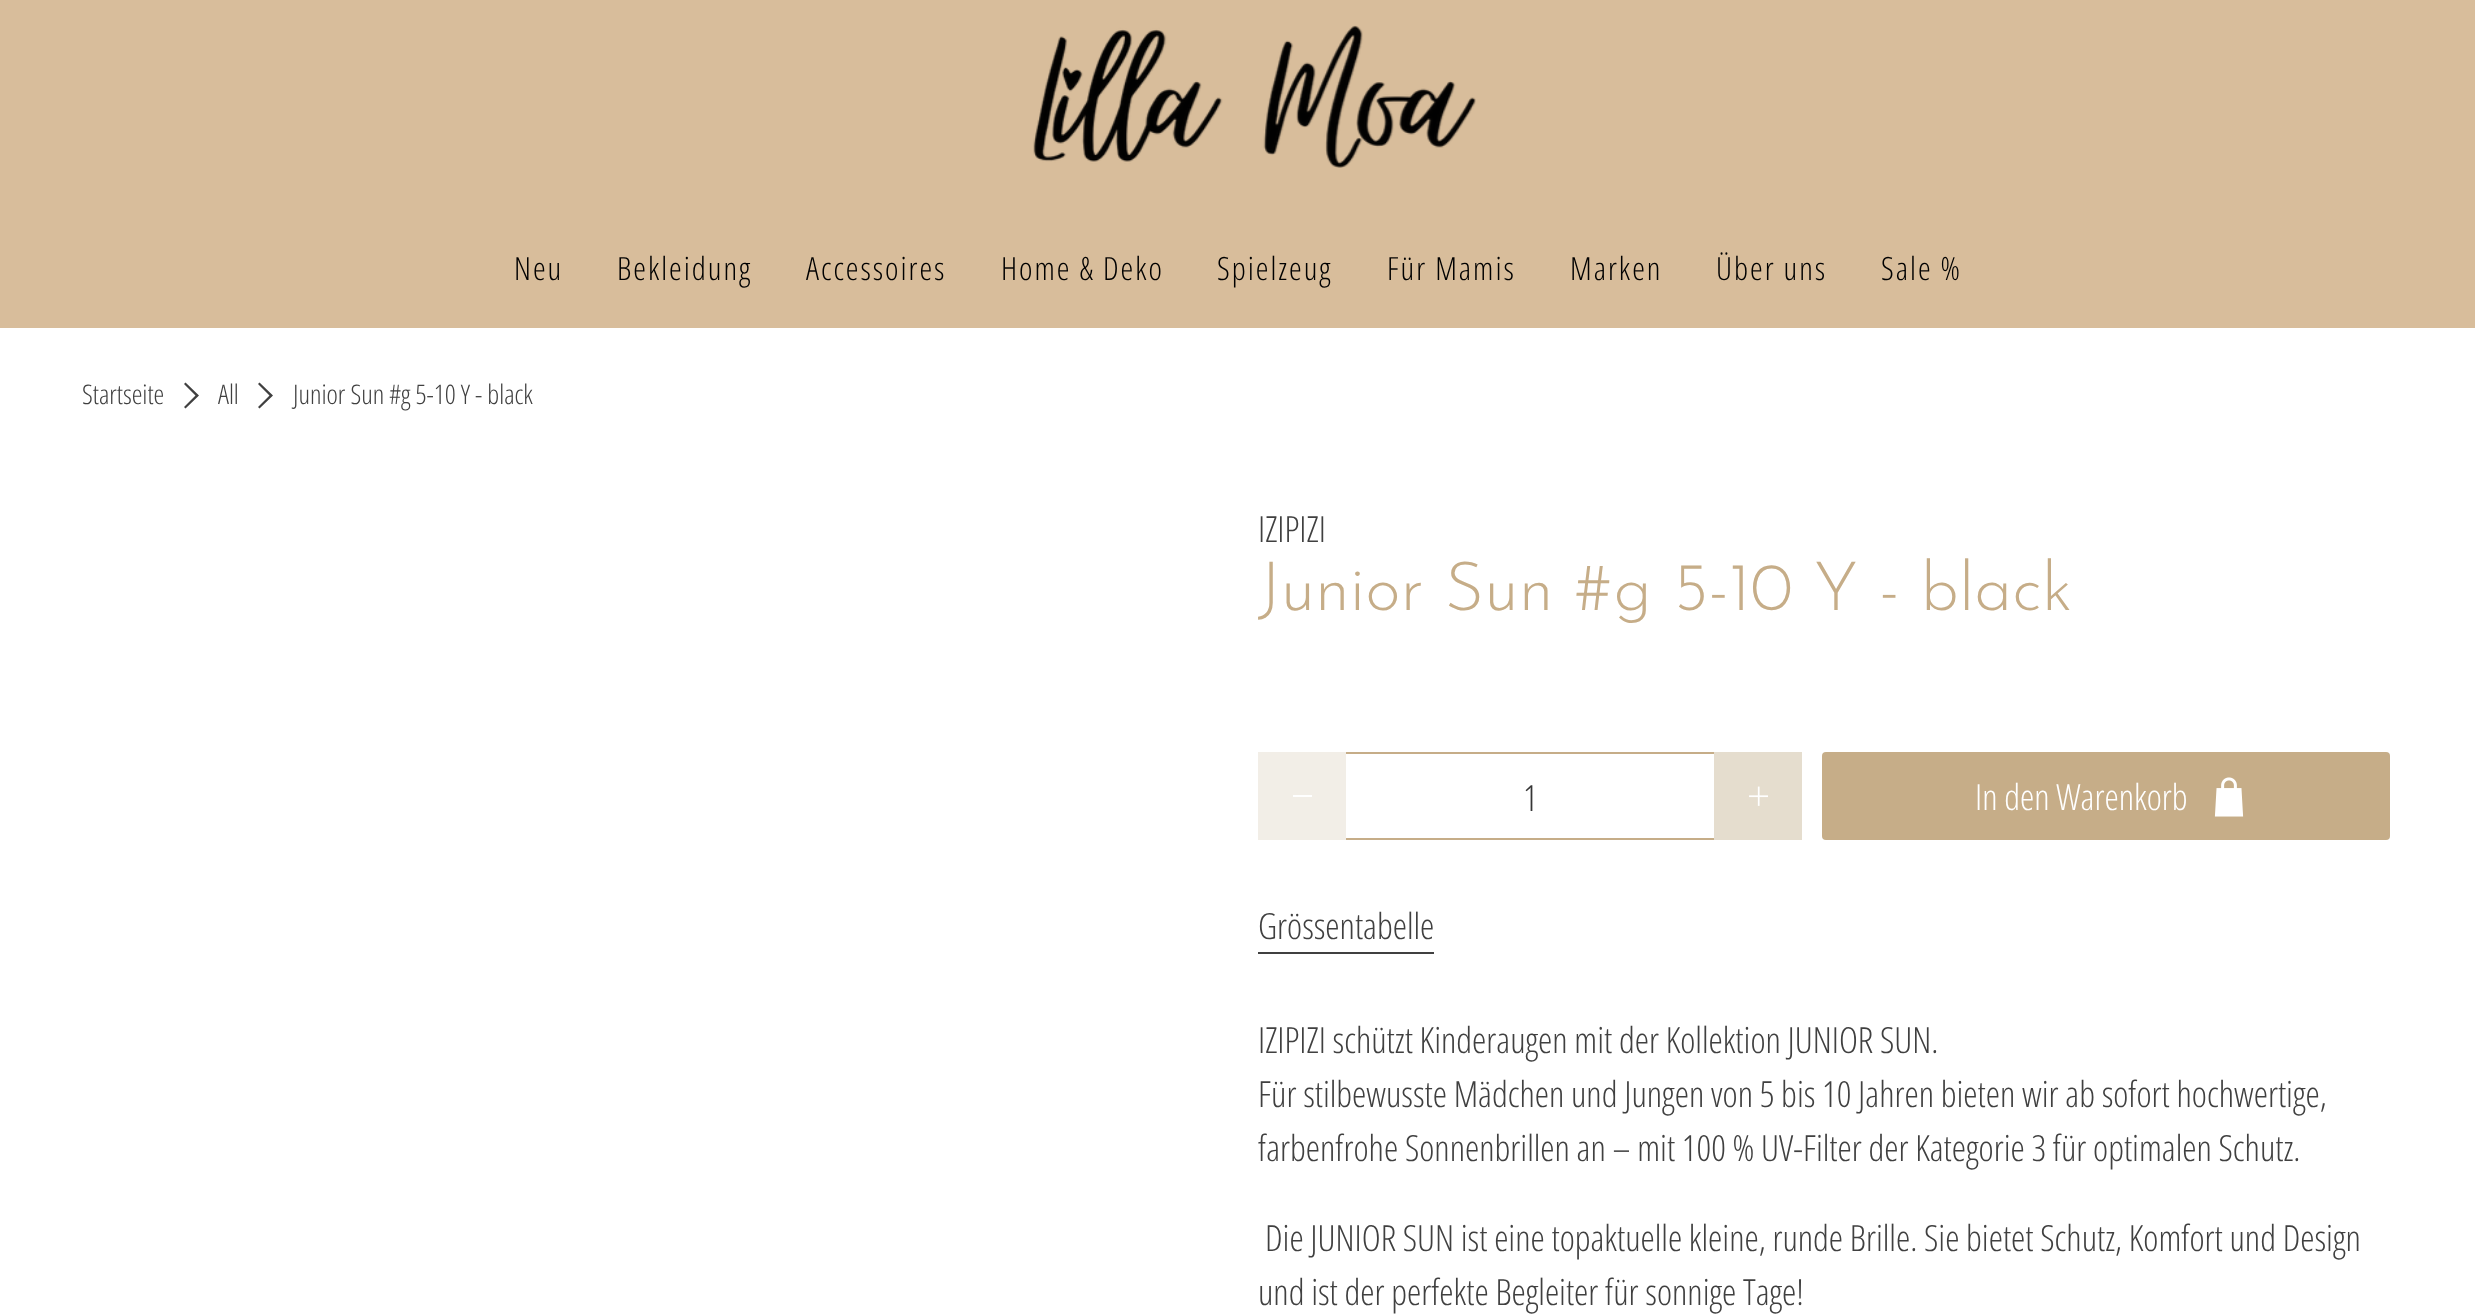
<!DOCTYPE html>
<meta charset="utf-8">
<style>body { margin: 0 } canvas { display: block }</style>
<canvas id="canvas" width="2475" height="1314"></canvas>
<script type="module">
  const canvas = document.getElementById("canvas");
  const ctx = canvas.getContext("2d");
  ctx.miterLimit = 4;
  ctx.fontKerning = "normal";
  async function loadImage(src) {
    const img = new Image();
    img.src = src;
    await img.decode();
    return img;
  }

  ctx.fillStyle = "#ffffff";
  ctx.fillRect(0, 0, 2475, 1314);
  ctx.fillStyle = "#d8bd9b";
  ctx.fillRect(0, 0, 2475, 328);
  ctx.drawImage(await loadImage("img1.png"), 1033, 25, 443, 143);
  ctx.letterSpacing = "2px";
  ctx.font = "300 32px Open Sans Condensed";
  ctx.fillStyle = "#000000";
  ctx.fillText("Neu", 514, 280);
  ctx.fillText("Bekleidung", 617, 280);
  ctx.fillText("Accessoires", 806, 280);
  ctx.fillText("Home & Deko", 1001, 280);
  ctx.fillText("Spielzeug", 1217, 280);
  ctx.fillText("Für Mamis", 1387, 280);
  ctx.fillText("Marken", 1570, 280);
  ctx.fillText("Über uns", 1716, 280);
  ctx.fillText("Sale %", 1881, 280);
  ctx.letterSpacing = "0px";
  ctx.font = "300 27px Open Sans Condensed";
  ctx.fillStyle = "#404040";
  ctx.fillText("Startseite", 82, 404);
  ctx.beginPath();
  ctx.moveTo(185.5, 408.5);
  ctx.lineTo(184, 407);
  ctx.lineTo(195.5, 395.5);
  ctx.lineTo(184, 384);
  ctx.lineTo(185.5, 382.5);
  ctx.lineTo(199, 395.5);
  ctx.closePath();
  ctx.fill();
  ctx.fillText("All", 218, 404);
  ctx.beginPath();
  ctx.moveTo(259.5, 408.5);
  ctx.lineTo(258, 407);
  ctx.lineTo(269.5, 395.5);
  ctx.lineTo(258, 384);
  ctx.lineTo(259.5, 382.5);
  ctx.lineTo(273, 395.5);
  ctx.closePath();
  ctx.fill();
  ctx.fillText("Junior Sun #g 5-10 Y - black", 293, 404);
  ctx.font = "300 36px Open Sans Condensed";
  ctx.fillText("IZIPIZI", 1258, 542);
  ctx.font = "300 68px Josefin Sans";
  ctx.fillStyle = "#c6ad88";
  ctx.fillText("Junior Sun #g 5-10 Y - black", 1258, 610);
  ctx.fillStyle = "#f2eee7";
  ctx.fillRect(1258, 752, 88, 88);
  ctx.fillStyle = "#ffffff";
  ctx.fillRect(1293, 795, 19, 2);
  ctx.fillStyle = "#c6ad88";
  ctx.fillRect(1346, 752, 368, 2);
  ctx.fillRect(1346, 838, 368, 2);
  ctx.font = "300 36px Open Sans Condensed";
  ctx.fillStyle = "#363636";
  ctx.fillText("1", 1523, 811);
  ctx.fillStyle = "#e5ddce";
  ctx.fillRect(1714, 752, 88, 88);
  ctx.drawImage(await loadImage("img2.png"), 1749, 786, 19, 20);
  ctx.fillStyle = "#c6ad88";
  ctx.beginPath();
  ctx.roundRect(1822, 752, 568, 88, 4);
  ctx.fill();
  ctx.fillStyle = "#ffffff";
  ctx.fillText("In den Warenkorb", 1975, 810);
  ctx.drawImage(await loadImage("img3.png"), 2214, 777, 30, 40);
  ctx.fillStyle = "#404040";
  ctx.fillRect(1258, 952, 176, 2);
  ctx.fillText("Grössentabelle", 1258, 939);
  ctx.fillText("IZIPIZI schützt Kinderaugen mit der Kollektion JUNIOR SUN.", 1258, 1053);
  ctx.fillText("Für stilbewusste Mädchen und Jungen von 5 bis 10 Jahren bieten wir ab sofort hochwertige,", 1258, 1107);
  ctx.fillText("farbenfrohe Sonnenbrillen an – mit 100 % UV-Filter der Kategorie 3 für optimalen Schutz.", 1258, 1161);
  ctx.fillText("Die JUNIOR SUN ist eine topaktuelle kleine, runde Brille. Sie bietet Schutz, Komfort und Design", 1265, 1251);
  ctx.fillText("und ist der perfekte Begleiter für sonnige Tage!", 1258, 1305);
</script>
